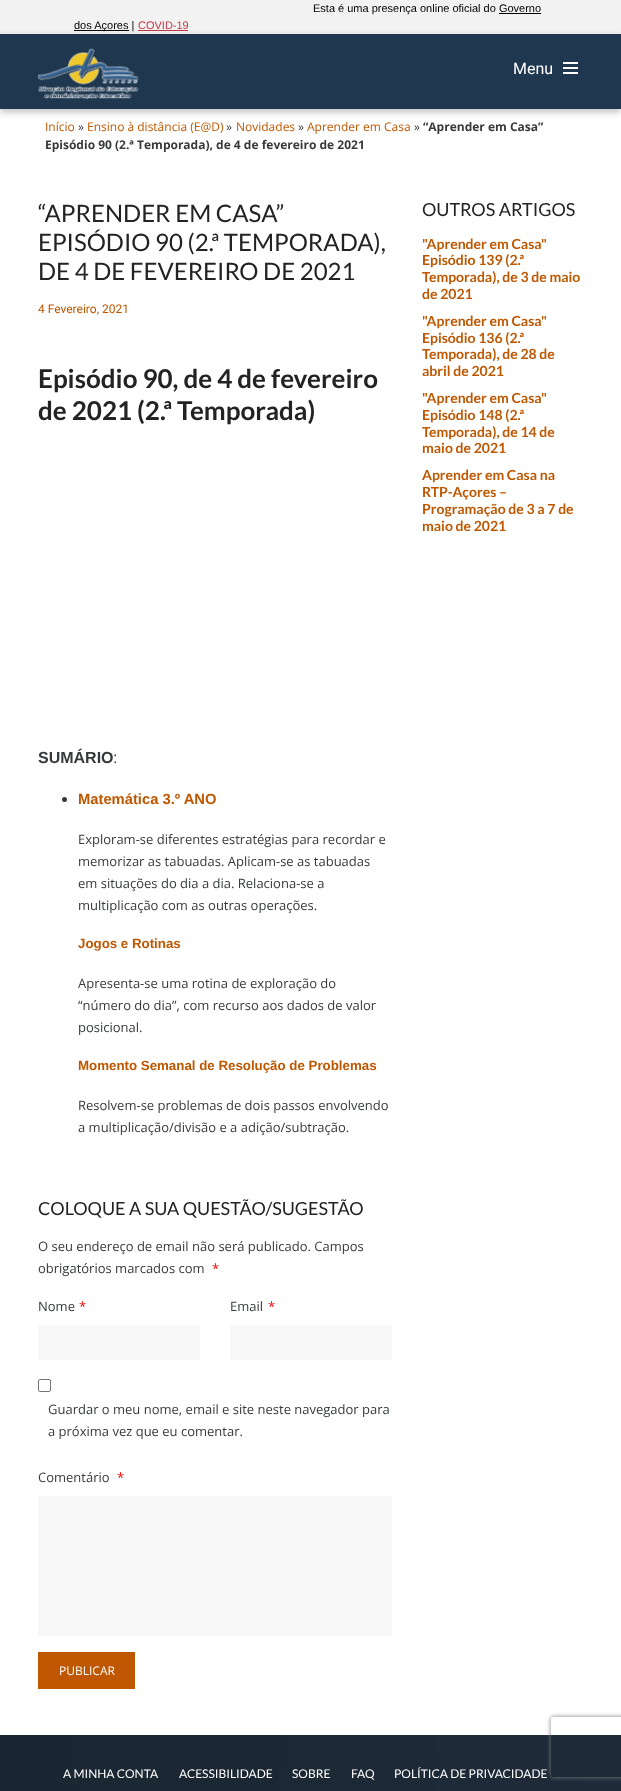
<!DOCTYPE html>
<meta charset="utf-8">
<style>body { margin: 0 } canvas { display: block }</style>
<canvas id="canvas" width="621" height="1791"></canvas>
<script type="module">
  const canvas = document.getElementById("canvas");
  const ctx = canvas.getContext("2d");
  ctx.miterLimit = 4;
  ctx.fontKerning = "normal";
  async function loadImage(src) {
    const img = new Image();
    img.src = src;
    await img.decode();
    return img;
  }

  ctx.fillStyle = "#ffffff";
  ctx.fillRect(0, 0, 621, 1791);
  ctx.fillStyle = "#f2f2f2";
  ctx.fillRect(0, 0, 621, 34);
  ctx.font = "11px Liberation Sans";
  ctx.fillStyle = "#000000";
  ctx.fillText("Esta é uma presença online oficial do Governo", 313, 12);
  ctx.fillRect(499, 13, 42, 1);
  ctx.fillRect(74, 30, 55, 1);
  ctx.fillText("dos Açores |", 74, 29);
  ctx.fillStyle = "#c13744";
  ctx.fillText("COVID-19", 138, 29);
  ctx.fillRect(138, 30, 50, 1);
  ctx.fillStyle = "rgba(0, 0, 0, 0.25)";
  ctx.filter = "blur(3.5px)";
  ctx.beginPath();
  ctx.rect(0, 37, 621, 75);
  ctx.fill();
  ctx.filter = "none";
  ctx.fillStyle = "#1f374f";
  ctx.fillRect(0, 34, 621, 75);
  ctx.drawImage(await loadImage("img1.png"), 37, 48, 102, 51);
  ctx.font = "16px Roboto";
  ctx.fillStyle = "#ffffff";
  ctx.fillText("Menu", 513, 74);
  ctx.fillRect(563, 62, 15, 2);
  ctx.fillRect(563, 67, 15, 2);
  ctx.fillRect(563, 72, 15, 2);
  ctx.font = "12px Open Sans";
  ctx.fillStyle = "#bf5700";
  ctx.fillText("Início", 45, 131);
  ctx.fillStyle = "#373a3c";
  ctx.fillText("»", 78, 131);
  ctx.fillStyle = "#bf5700";
  ctx.fillText("Ensino à distância (E@D)", 87, 131);
  ctx.fillStyle = "#373a3c";
  ctx.fillText("»", 226, 131);
  ctx.fillStyle = "#bf5700";
  ctx.fillText("Novidades", 236, 131);
  ctx.fillStyle = "#373a3c";
  ctx.fillText("»", 298, 131);
  ctx.fillStyle = "#bf5700";
  ctx.fillText("Aprender em Casa", 307, 131);
  ctx.fillStyle = "#373a3c";
  ctx.fillText("»", 414, 131);
  ctx.font = "bold 12px Open Sans";
  ctx.fillText("“Aprender em Casa”", 423, 131);
  ctx.fillText("Episódio 90 (2.ª Temporada), de 4 de fevereiro de 2021", 45, 149);
  ctx.font = "24px Lato";
  ctx.fillStyle = "#232323";
  ctx.fillText("“APRENDER EM CASA”", 38, 222);
  ctx.fillText("EPISÓDIO 90 (2.ª TEMPORADA),", 38, 251);
  ctx.fillText("DE 4 DE FEVEREIRO DE 2021", 38, 280);
  ctx.font = "12px Roboto";
  ctx.fillStyle = "#bf5700";
  ctx.fillText("4 Fevereiro, 2021", 38, 313);
  ctx.font = "bold 26px Lato";
  ctx.fillStyle = "#232323";
  ctx.fillText("Episódio 90, de 4 de fevereiro", 38, 388);
  ctx.fillText("de 2021 (2.ª Temporada)", 38, 420);
  ctx.font = "bold 16px Liberation Sans";
  ctx.fillStyle = "#373a3c";
  ctx.fillText("SUMÁRIO", 38, 763);
  ctx.font = "16px Liberation Sans";
  ctx.fillText(":", 113, 763);
  ctx.beginPath();
  ctx.arc(64.5, 799.5, 2.5, 0, Math.PI * 2);
  ctx.fill();
  ctx.font = "bold 14.75px Liberation Sans";
  ctx.fillStyle = "#bf5700";
  ctx.fillText("Matemática 3.º ANO", 78, 804);
  ctx.font = "13px Open Sans";
  ctx.fillStyle = "#373a3c";
  ctx.fillText("Exploram-se diferentes estratégias para recordar e", 78, 844);
  ctx.fillText("memorizar as tabuadas. Aplicam-se as tabuadas", 78, 866);
  ctx.fillText("em situações do dia a dia. Relaciona-se a", 78, 888);
  ctx.fillText("multiplicação com as outras operações.", 78, 910);
  ctx.font = "bold 13.3px Liberation Sans";
  ctx.fillStyle = "#bf5700";
  ctx.fillText("Jogos e Rotinas", 78, 948);
  ctx.font = "13px Open Sans";
  ctx.fillStyle = "#373a3c";
  ctx.fillText("Apresenta-se uma rotina de exploração do", 78, 988);
  ctx.fillText("“número do dia”, com recurso aos dados de valor", 78, 1010);
  ctx.fillText("posicional.", 78, 1032);
  ctx.font = "bold 13.3px Liberation Sans";
  ctx.fillStyle = "#bf5700";
  ctx.fillText("Momento Semanal de Resolução de Problemas", 78, 1070);
  ctx.font = "13px Open Sans";
  ctx.fillStyle = "#373a3c";
  ctx.fillText("Resolvem-se problemas de dois passos envolvendo", 78, 1110);
  ctx.fillText("a multiplicação/divisão e a adição/subtração.", 78, 1132);
  ctx.font = "18px Lato";
  ctx.fillStyle = "#232323";
  ctx.fillText("COLOQUE A SUA QUESTÃO/SUGESTÃO", 38, 1215);
  ctx.font = "13px Open Sans";
  ctx.fillStyle = "#373a3c";
  ctx.fillText("O seu endereço de email não será publicado. Campos", 38, 1251);
  ctx.fillText("obrigatórios marcados com", 38, 1273);
  ctx.fillStyle = "#ff0000";
  ctx.fillText("*", 212, 1273);
  ctx.fillStyle = "#373a3c";
  ctx.fillText("Nome", 38, 1311);
  ctx.fillStyle = "#ff0000";
  ctx.fillText("*", 79, 1311);
  ctx.fillStyle = "#f8f8f8";
  ctx.fillRect(38, 1325, 162, 35);
  ctx.fillStyle = "#373a3c";
  ctx.fillText("Email", 230, 1311);
  ctx.fillStyle = "#ff0000";
  ctx.fillText("*", 268, 1311);
  ctx.fillStyle = "#f8f8f8";
  ctx.fillRect(230, 1325, 162, 35);
  ctx.beginPath();
  ctx.roundRect(38.5, 1379.5, 12, 12, 1.5);
  ctx.strokeStyle = "#767676";
  ctx.stroke();
  ctx.fillStyle = "#373a3c";
  ctx.fillText("Guardar o meu nome, email e site neste navegador para", 48, 1414);
  ctx.fillText("a próxima vez que eu comentar.", 48, 1436);
  ctx.fillText("Comentário", 38, 1482);
  ctx.fillStyle = "#ff0000";
  ctx.fillText("*", 117, 1482);
  ctx.fillStyle = "#f8f8f8";
  ctx.fillRect(38, 1496, 354, 140);
  ctx.fillStyle = "#bf5700";
  ctx.fillRect(38, 1652, 97, 37);
  ctx.font = "12px Open Sans";
  ctx.fillStyle = "#ffffff";
  ctx.fillText("PUBLICAR", 59, 1675);
  ctx.font = "18px Lato";
  ctx.fillStyle = "#232323";
  ctx.fillText("OUTROS ARTIGOS", 422, 216);
  ctx.font = "bold 14px Lato";
  ctx.fillStyle = "#bf5700";
  ctx.fillText("\"Aprender em Casa\"", 422, 249);
  ctx.fillText("Episódio 139 (2.ª", 422, 265);
  ctx.fillText("Temporada), de 3 de maio", 422, 282);
  ctx.fillText("de 2021", 422, 299);
  ctx.fillText("\"Aprender em Casa\"", 422, 326);
  ctx.fillText("Episódio 136 (2.ª", 422, 343);
  ctx.fillText("Temporada), de 28 de", 422, 359);
  ctx.fillText("abril de 2021", 422, 376);
  ctx.fillText("\"Aprender em Casa\"", 422, 403);
  ctx.fillText("Episódio 148 (2.ª", 422, 420);
  ctx.fillText("Temporada), de 14 de", 422, 437);
  ctx.fillText("maio de 2021", 422, 453);
  ctx.fillText("Aprender em Casa na", 422, 480);
  ctx.fillText("RTP-Açores –", 422, 497);
  ctx.fillText("Programação de 3 a 7 de", 422, 514);
  ctx.fillText("maio de 2021", 422, 531);
  ctx.drawImage(await loadImage("img2.png"), 0, 1735, 621, 56);
  ctx.font = "12px Lato";
  ctx.fillStyle = "#ffffff";
  ctx.fillText("A MINHA CONTA", 63, 1778);
  ctx.fillText("ACESSIBILIDADE", 179, 1778);
  ctx.fillText("SOBRE", 292, 1778);
  ctx.fillText("FAQ", 351, 1778);
  ctx.fillText("POLÍTICA DE PRIVACIDADE", 394, 1778);
  ctx.save();
  ctx.beginPath();
  ctx.moveTo(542, 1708);
  ctx.lineTo(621, 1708);
  ctx.lineTo(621, 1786);
  ctx.lineTo(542, 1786);
  ctx.closePath();
  ctx.moveTo(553, 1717);
  ctx.lineTo(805, 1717);
  ctx.bezierCurveTo(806, 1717, 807, 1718, 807, 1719);
  ctx.lineTo(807, 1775);
  ctx.bezierCurveTo(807, 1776, 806, 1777, 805, 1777);
  ctx.lineTo(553, 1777);
  ctx.bezierCurveTo(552, 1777, 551, 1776, 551, 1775);
  ctx.lineTo(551, 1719);
  ctx.bezierCurveTo(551, 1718, 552, 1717, 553, 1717);
  ctx.closePath();
  ctx.clip("evenodd");
  ctx.fillStyle = "#808080";
  ctx.filter = "blur(2.5px)";
  ctx.beginPath();
  ctx.roundRect(551, 1717, 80, 60, 2);
  ctx.fill();
  ctx.filter = "none";
  ctx.restore();
</script>
